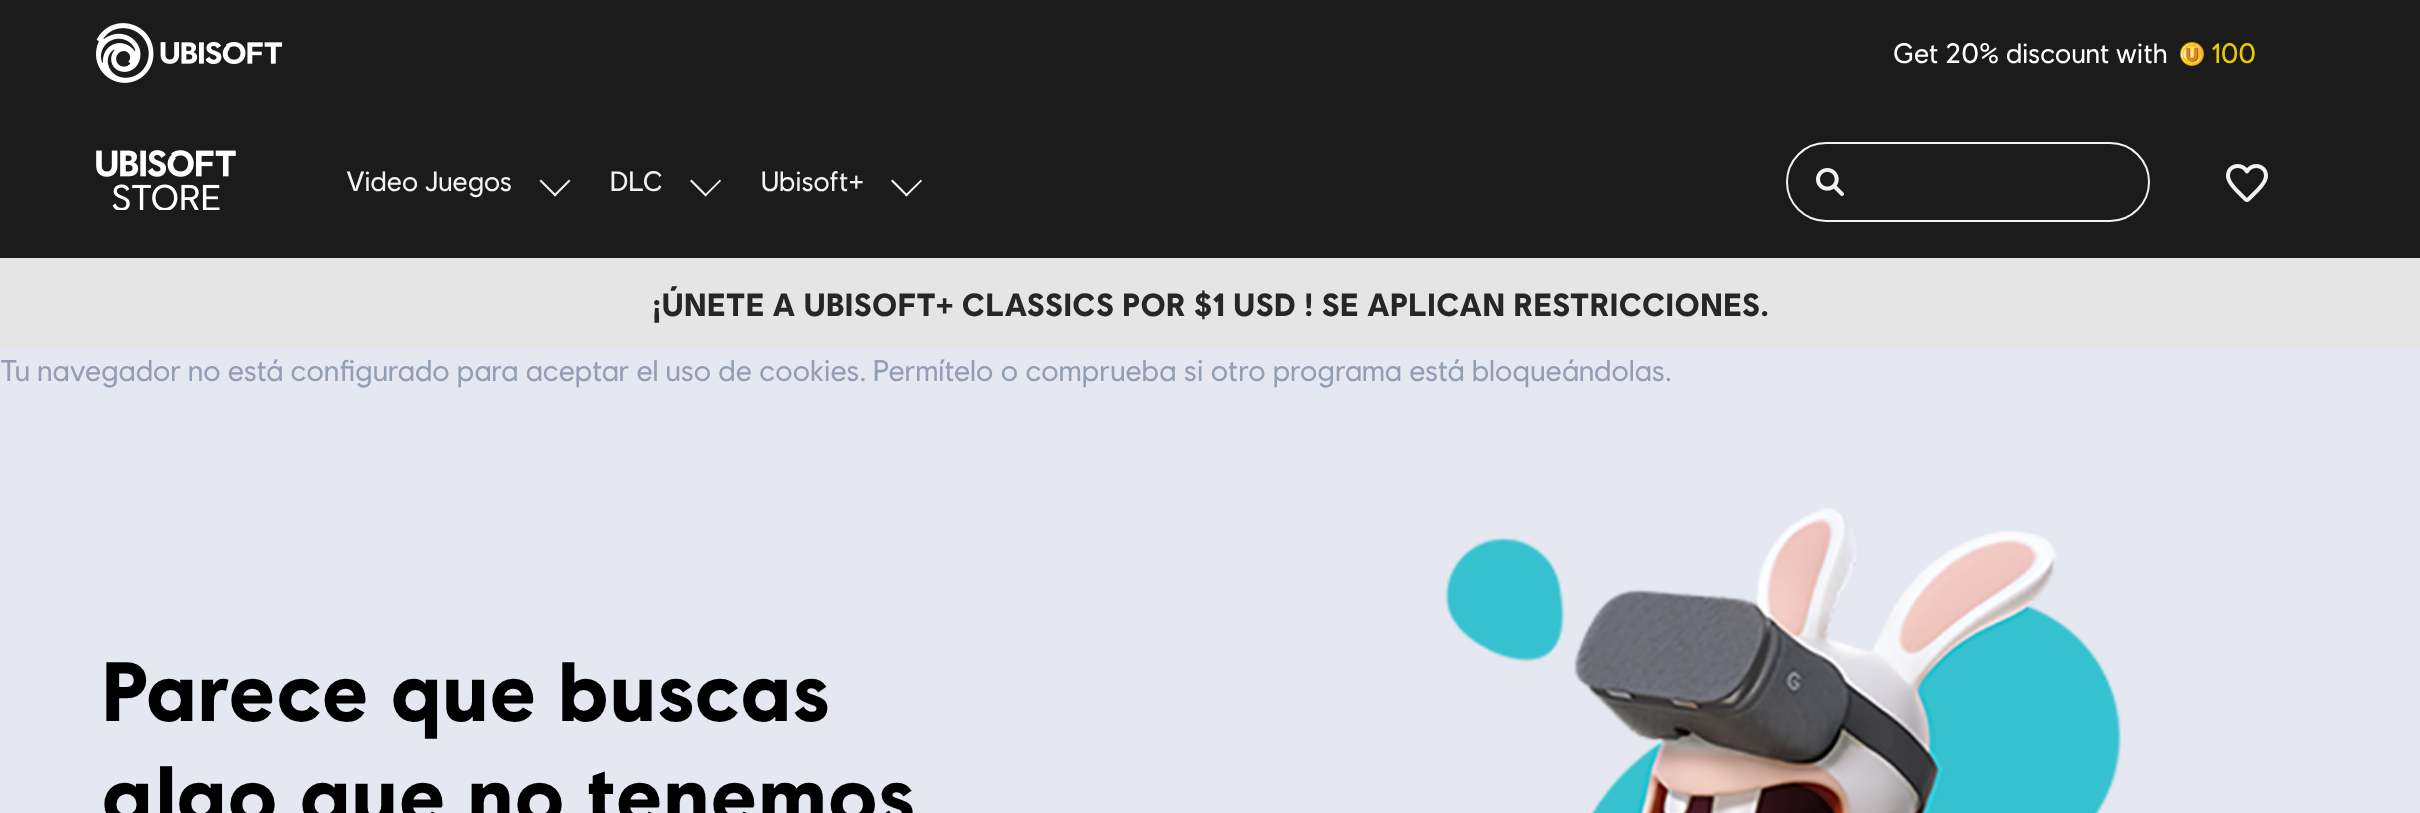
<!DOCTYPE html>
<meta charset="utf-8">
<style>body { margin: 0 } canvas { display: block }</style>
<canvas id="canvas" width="2420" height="813"></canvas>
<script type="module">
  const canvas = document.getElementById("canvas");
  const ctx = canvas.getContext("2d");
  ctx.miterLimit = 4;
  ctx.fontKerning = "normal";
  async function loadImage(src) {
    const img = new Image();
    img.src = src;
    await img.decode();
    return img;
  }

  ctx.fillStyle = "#e5e8f0";
  ctx.fillRect(0, 0, 2420, 813);
  ctx.fillStyle = "#1b1b1b";
  ctx.fillRect(0, 0, 2420, 258);
  ctx.drawImage(await loadImage("img1.png"), 96, 23, 186, 60);
  ctx.font = "28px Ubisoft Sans";
  ctx.fillStyle = "#ffffff";
  ctx.fillText("Get 20% discount with", 1893, 63);
  ctx.drawImage(await loadImage("img2.png"), 2180, 42, 24, 24);
  ctx.fillStyle = "#edc800";
  ctx.fillText("100", 2211, 63);
  ctx.drawImage(await loadImage("img3.png"), 96, 150, 140, 60);
  ctx.fillStyle = "#f2f2f2";
  ctx.fillText("Video Juegos", 346, 191);
  ctx.beginPath();
  ctx.moveTo(570.5, 181);
  ctx.lineTo(555, 196.5);
  ctx.lineTo(553.5, 195);
  ctx.lineTo(569, 179.5);
  ctx.closePath();
  ctx.fill();
  ctx.beginPath();
  ctx.moveTo(556.5, 195);
  ctx.lineTo(555, 196.5);
  ctx.lineTo(539.5, 181);
  ctx.lineTo(541, 179.5);
  ctx.closePath();
  ctx.fill();
  ctx.fillText("DLC", 610, 191);
  ctx.beginPath();
  ctx.moveTo(721, 181);
  ctx.lineTo(705.5, 196.5);
  ctx.lineTo(704.5, 195);
  ctx.lineTo(720, 179.5);
  ctx.closePath();
  ctx.fill();
  ctx.beginPath();
  ctx.moveTo(707, 195);
  ctx.lineTo(705.5, 196.5);
  ctx.lineTo(690, 181);
  ctx.lineTo(691.5, 179.5);
  ctx.closePath();
  ctx.fill();
  ctx.fillText("Ubisoft+", 761, 191);
  ctx.beginPath();
  ctx.moveTo(922, 181);
  ctx.lineTo(906.5, 196.5);
  ctx.lineTo(905, 195);
  ctx.lineTo(921, 179.5);
  ctx.closePath();
  ctx.fill();
  ctx.beginPath();
  ctx.moveTo(908, 195);
  ctx.lineTo(906.5, 196.5);
  ctx.lineTo(891, 181);
  ctx.lineTo(892.5, 179.5);
  ctx.closePath();
  ctx.fill();
  ctx.beginPath();
  ctx.roundRect(1787, 143, 362, 78, 39);
  ctx.strokeStyle = "#f2f2f2";
  ctx.lineWidth = 2;
  ctx.stroke();
  ctx.drawImage(await loadImage("img4.png"), 1816, 168, 28, 28);
  ctx.drawImage(await loadImage("img5.png"), 2226, 164, 42, 38);
  ctx.fillStyle = "#e5e5e5";
  ctx.fillRect(0, 258, 2420, 90);
  ctx.font = "bold 32px Ubisoft Sans";
  ctx.fillStyle = "#262626";
  ctx.fillText("¡ÚNETE A UBISOFT+ CLASSICS POR $1 USD ! SE APLICAN RESTRICCIONES.", 652, 316);
  ctx.font = "30px Ubisoft Sans";
  ctx.fillStyle = "#929db6";
  ctx.fillText("Tu navegador no está configurado para aceptar el uso de cookies. Permítelo o comprueba si otro programa está bloqueándolas.", 0, 381);
  ctx.font = "bold 84px Ubisoft Sans";
  ctx.fillStyle = "#000000";
  ctx.fillText("Parece que buscas", 101, 721);
  ctx.fillText("algo que no tenemos", 101, 825);
  ctx.drawImage(await loadImage("img6.png"), 1444, 508, 678, 305);
</script>
